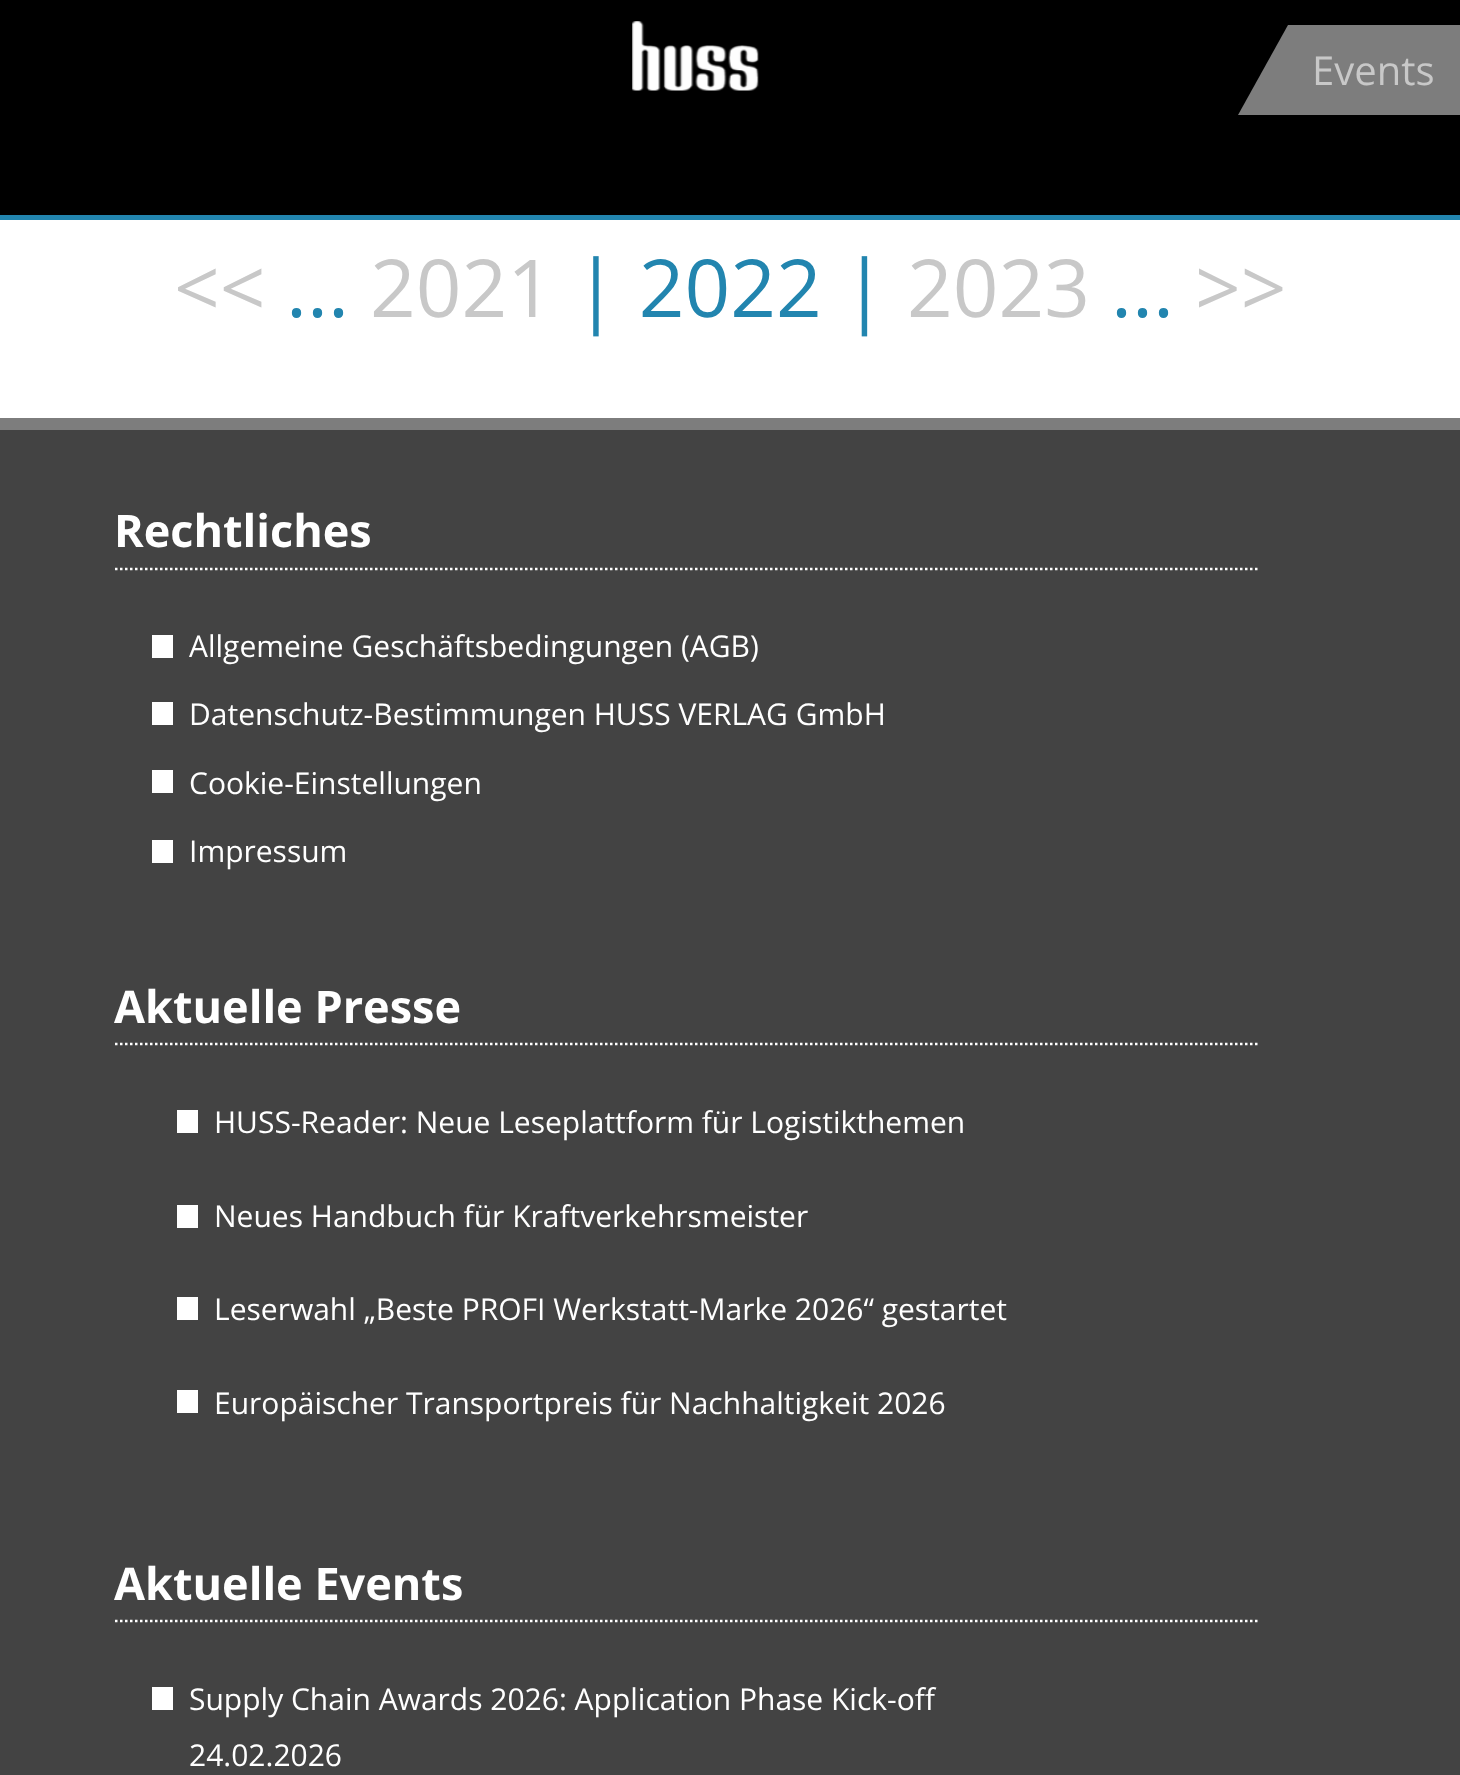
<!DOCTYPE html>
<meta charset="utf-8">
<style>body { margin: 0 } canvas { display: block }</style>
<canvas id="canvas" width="1460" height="1775"></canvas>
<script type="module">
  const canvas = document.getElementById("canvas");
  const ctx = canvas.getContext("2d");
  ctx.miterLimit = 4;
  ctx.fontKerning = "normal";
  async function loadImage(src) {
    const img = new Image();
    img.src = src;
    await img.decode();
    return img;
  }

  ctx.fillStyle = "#ffffff";
  ctx.fillRect(0, 0, 1460, 1775);
  ctx.fillStyle = "#000000";
  ctx.fillRect(0, 0, 1460, 215);
  ctx.drawImage(await loadImage("img1.png"), 632, 21, 127, 70);
  ctx.fillStyle = "#7d7d7d";
  ctx.beginPath();
  ctx.moveTo(1288, 25);
  ctx.lineTo(1288, 115);
  ctx.lineTo(1238, 115);
  ctx.closePath();
  ctx.fill();
  ctx.fillRect(1288, 25, 172, 90);
  ctx.font = "40px Open Sans";
  ctx.fillStyle = "#c8c8c8";
  ctx.fillText("Events", 1312, 85);
  ctx.fillStyle = "#2285af";
  ctx.fillRect(0, 215, 1460, 5);
  ctx.font = "80px Open Sans";
  ctx.fillStyle = "#c8c8c8";
  ctx.fillText("<<", 174, 317);
  ctx.fillText("2021", 370, 317);
  ctx.fillStyle = "#2285af";
  ctx.fillText("| 2022 |", 574, 317);
  ctx.fillStyle = "#c8c8c8";
  ctx.fillText("2023", 907, 317);
  ctx.fillText(">>", 1195, 317);
  ctx.fillStyle = "#2285af";
  ctx.fillText("...", 286, 317);
  ctx.fillText("...", 1111, 317);
  ctx.fillStyle = "#434343";
  ctx.fillRect(0, 430, 1460, 1345);
  ctx.fillStyle = "#7d7d7d";
  ctx.fillRect(0, 418, 1460, 12);
  ctx.beginPath();
  ctx.moveTo(115, 569);
  ctx.lineTo(1257.5, 569);
  ctx.strokeStyle = "#ffffff";
  ctx.lineWidth = 2.5;
  ctx.setLineDash([2.5, 2.5]);
  ctx.stroke();
  ctx.font = "bold 45px Open Sans";
  ctx.fillStyle = "#ffffff";
  ctx.fillText("Rechtliches", 114, 547);
  ctx.fillRect(152, 635, 21, 23);
  ctx.font = "30px Open Sans";
  ctx.fillText("Allgemeine Geschäftsbedingungen (AGB)", 189, 657);
  ctx.fillRect(152, 702, 21, 23);
  ctx.fillText("Datenschutz-Bestimmungen HUSS VERLAG GmbH", 189, 725);
  ctx.fillRect(152, 770, 21, 23);
  ctx.fillText("Cookie-Einstellungen", 189, 794);
  ctx.fillRect(152, 840, 21, 23);
  ctx.fillText("Impressum", 189, 862);
  ctx.beginPath();
  ctx.moveTo(115, 1044);
  ctx.lineTo(1257.5, 1044);
  ctx.stroke();
  ctx.font = "bold 45px Open Sans";
  ctx.fillText("Aktuelle Presse", 114, 1023);
  ctx.fillRect(177, 1110, 21, 23);
  ctx.font = "30px Open Sans";
  ctx.fillText("HUSS-Reader: Neue Leseplattform für Logistikthemen", 214, 1133);
  ctx.fillRect(177, 1205, 21, 23);
  ctx.fillText("Neues Handbuch für Kraftverkehrsmeister", 214, 1227);
  ctx.fillRect(177, 1297, 21, 23);
  ctx.fillText("Leserwahl „Beste PROFI Werkstatt-Marke 2026“ gestartet", 214, 1320);
  ctx.fillRect(177, 1390, 21, 23);
  ctx.fillText("Europäischer Transportpreis für Nachhaltigkeit 2026", 214, 1414);
  ctx.beginPath();
  ctx.moveTo(115, 1621);
  ctx.lineTo(1257.5, 1621);
  ctx.stroke();
  ctx.font = "bold 45px Open Sans";
  ctx.fillText("Aktuelle Events", 114, 1600);
  ctx.fillRect(152, 1687, 21, 23);
  ctx.font = "30px Open Sans";
  ctx.fillText("Supply Chain Awards 2026: Application Phase Kick-off", 189, 1710);
  ctx.fillText("24.02.2026", 189, 1766);
</script>
